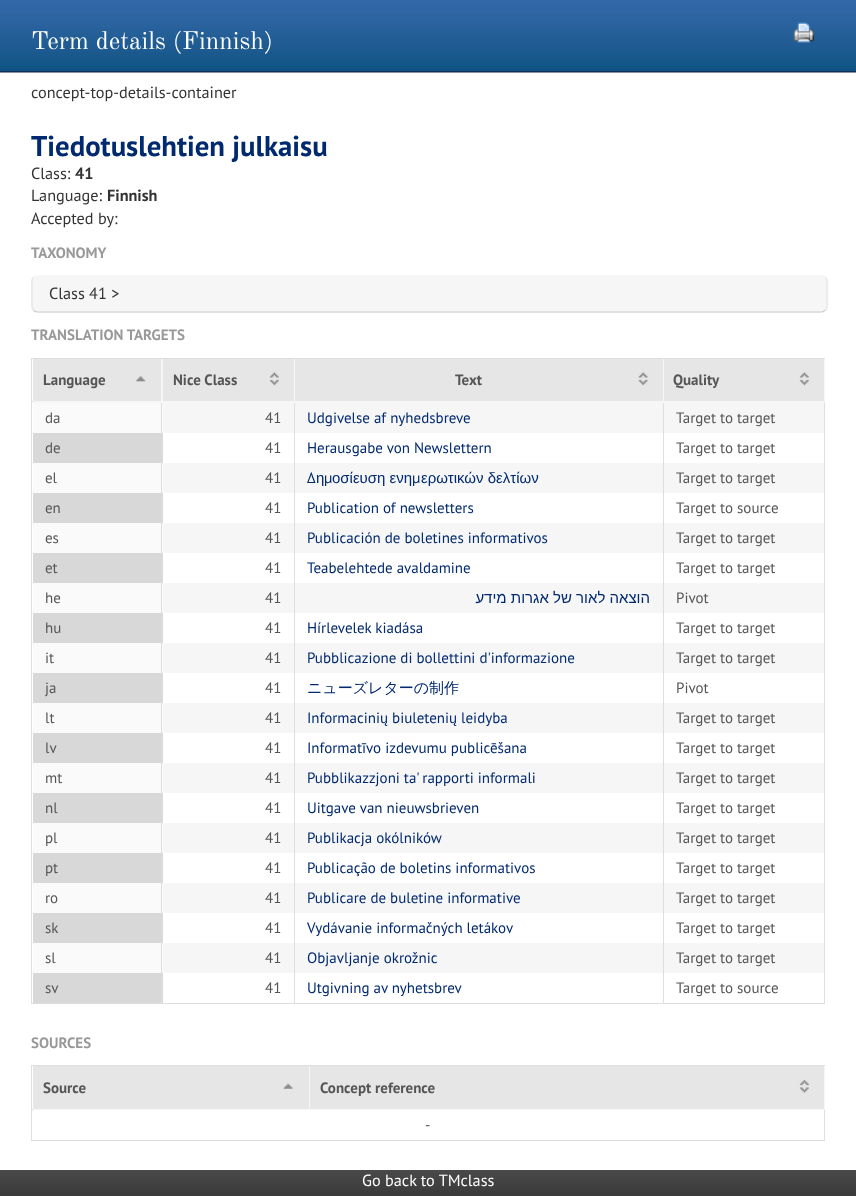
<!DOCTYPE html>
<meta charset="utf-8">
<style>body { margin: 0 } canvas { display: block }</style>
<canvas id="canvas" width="856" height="1196"></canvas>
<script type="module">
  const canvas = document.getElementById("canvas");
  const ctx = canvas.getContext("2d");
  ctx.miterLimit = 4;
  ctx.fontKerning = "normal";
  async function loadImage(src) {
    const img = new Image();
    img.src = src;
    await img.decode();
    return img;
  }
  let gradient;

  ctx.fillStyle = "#ffffff";
  ctx.fillRect(0, 0, 856, 1196);
  ctx.drawImage(await loadImage("img1.png"), 0, 0, 856, 73);
  ctx.font = "25px Old Standard TT";
  ctx.fillText("Term details (Finnish)", 31, 49);
  ctx.font = "16.25px PT Sans";
  ctx.fillStyle = "#333333";
  ctx.fillText("concept-top-details-container", 31, 98);
  ctx.font = "bold 28.75px PT Sans";
  ctx.fillStyle = "#002970";
  ctx.fillText("Tiedotuslehtien julkaisu", 31, 156);
  ctx.font = "16.25px PT Sans";
  ctx.fillStyle = "#333333";
  ctx.fillText("Class:", 31, 179);
  ctx.font = "bold 16.25px PT Sans";
  ctx.fillText("41", 75, 179);
  ctx.font = "16.25px PT Sans";
  ctx.fillText("Language:", 31, 201);
  ctx.font = "bold 16.25px PT Sans";
  ctx.fillText("Finnish", 107, 201);
  ctx.font = "16.25px PT Sans";
  ctx.fillText("Accepted by:", 31, 224);
  ctx.font = "bold 15px PT Sans";
  ctx.fillStyle = "#999999";
  ctx.fillText("TAXONOMY", 31, 258);
  ctx.fillStyle = "#f6f6f6";
  ctx.beginPath();
  ctx.roundRect(31, 275, 797, 38, 6);
  ctx.fill();
  ctx.beginPath();
  ctx.moveTo(825, 277.5);
  ctx.bezierCurveTo(826.5, 278.5, 827, 280, 827, 281);
  ctx.lineTo(827, 306);
  ctx.bezierCurveTo(827, 307.5, 826.5, 309, 825, 310);
  ctx.strokeStyle = "#e5e5e5";
  ctx.lineWidth = 1.2;
  ctx.stroke();
  ctx.beginPath();
  ctx.moveTo(825, 310);
  ctx.bezierCurveTo(824, 311.5, 822.5, 312, 821, 312);
  ctx.lineTo(37.5, 312);
  ctx.bezierCurveTo(36, 312, 34.5, 311.5, 33.5, 310);
  ctx.strokeStyle = "#cccccc";
  ctx.stroke();
  ctx.beginPath();
  ctx.moveTo(33.5, 310);
  ctx.bezierCurveTo(32.5, 309, 32, 307.5, 32, 306);
  ctx.lineTo(32, 281);
  ctx.bezierCurveTo(32, 280, 32.5, 278.5, 33.5, 277.5);
  ctx.strokeStyle = "#e5e5e5";
  ctx.stroke();
  ctx.font = "16.25px PT Sans";
  ctx.fillStyle = "#333333";
  ctx.fillText("Class 41 >", 49, 299);
  ctx.font = "bold 15px PT Sans";
  ctx.fillStyle = "#999999";
  ctx.fillText("TRANSLATION TARGETS", 31, 340);
  ctx.fillStyle = "#dedede";
  ctx.fillRect(31, 358, 794, 1);
  ctx.fillRect(824, 358, 1, 646);
  ctx.fillRect(31, 1003, 794, 1);
  ctx.fillRect(31, 358, 1, 646);
  ctx.fillStyle = "#dddddd";
  ctx.fillRect(31, 401, 2, 1);
  ctx.fillStyle = "#fafafa";
  ctx.fillRect(33, 403, 130, 30);
  ctx.fillStyle = "#d8d8d8";
  ctx.fillRect(33, 433, 130, 30);
  ctx.fillStyle = "#fafafa";
  ctx.fillRect(33, 463, 130, 30);
  ctx.fillStyle = "#d8d8d8";
  ctx.fillRect(33, 493, 130, 30);
  ctx.fillStyle = "#fafafa";
  ctx.fillRect(33, 523, 130, 30);
  ctx.fillStyle = "#d8d8d8";
  ctx.fillRect(33, 553, 130, 30);
  ctx.fillStyle = "#fafafa";
  ctx.fillRect(33, 583, 130, 30);
  ctx.fillStyle = "#d8d8d8";
  ctx.fillRect(33, 613, 130, 30);
  ctx.fillStyle = "#fafafa";
  ctx.fillRect(33, 643, 130, 30);
  ctx.fillStyle = "#d8d8d8";
  ctx.fillRect(33, 673, 130, 30);
  ctx.fillStyle = "#fafafa";
  ctx.fillRect(33, 703, 130, 30);
  ctx.fillStyle = "#d8d8d8";
  ctx.fillRect(33, 733, 130, 30);
  ctx.fillStyle = "#fafafa";
  ctx.fillRect(33, 763, 130, 30);
  ctx.fillStyle = "#d8d8d8";
  ctx.fillRect(33, 793, 130, 30);
  ctx.fillStyle = "#fafafa";
  ctx.fillRect(33, 823, 130, 30);
  ctx.fillStyle = "#d8d8d8";
  ctx.fillRect(33, 853, 130, 30);
  ctx.fillStyle = "#fafafa";
  ctx.fillRect(33, 883, 130, 30);
  ctx.fillStyle = "#d8d8d8";
  ctx.fillRect(33, 913, 130, 30);
  ctx.fillStyle = "#fafafa";
  ctx.fillRect(33, 943, 130, 30);
  ctx.fillStyle = "#d8d8d8";
  ctx.fillRect(33, 973, 130, 30);
  ctx.fillStyle = "#dedede";
  ctx.fillRect(161, 401, 1, 603);
  ctx.fillStyle = "#f6f6f6";
  ctx.fillRect(33, 359, 130, 44);
  ctx.fillStyle = "#e6e6e6";
  ctx.fillRect(33, 359, 128, 42);
  ctx.fillStyle = "#555555";
  ctx.fillText("Language", 43, 385);
  ctx.drawImage(await loadImage("img2.png"), 136, 376, 10, 6);
  ctx.fillStyle = "#f6f6f6";
  ctx.fillRect(163, 401, 131, 2);
  ctx.fillStyle = "#e6e6e6";
  ctx.fillRect(163, 359, 131, 42);
  ctx.fillStyle = "#555555";
  ctx.fillText("Nice Class", 173, 385);
  ctx.drawImage(await loadImage("img3.png"), 269, 372, 10, 14);
  ctx.fillStyle = "#f6f6f6";
  ctx.fillRect(163, 403, 661, 30);
  ctx.fillRect(163, 463, 661, 30);
  ctx.fillRect(163, 523, 661, 30);
  ctx.fillRect(163, 583, 661, 30);
  ctx.fillRect(163, 643, 661, 30);
  ctx.fillRect(163, 703, 661, 30);
  ctx.fillRect(163, 763, 661, 30);
  ctx.fillRect(163, 823, 661, 30);
  ctx.fillRect(163, 883, 661, 30);
  ctx.fillRect(163, 943, 661, 30);
  ctx.fillStyle = "#dedede";
  ctx.fillRect(294, 401, 1, 603);
  ctx.fillRect(663, 401, 1, 603);
  ctx.fillStyle = "#f6f6f6";
  ctx.fillRect(294, 359, 531, 44);
  ctx.fillStyle = "#e6e6e6";
  ctx.fillRect(295, 359, 368, 42);
  ctx.fillStyle = "#555555";
  ctx.fillText("Text", 455, 385);
  ctx.drawImage(await loadImage("img4.png"), 638, 372, 10, 14);
  ctx.fillStyle = "#e6e6e6";
  ctx.fillRect(664, 359, 160, 42);
  ctx.fillStyle = "#555555";
  ctx.fillText("Quality", 673, 385);
  ctx.drawImage(await loadImage("img3.png"), 799, 372, 10, 14);
  ctx.font = "15px PT Sans";
  ctx.fillText("da", 45, 423);
  ctx.fillText("41", 265, 423);
  ctx.fillStyle = "#002970";
  ctx.fillText("Udgivelse af nyhedsbreve", 307, 423);
  ctx.fillStyle = "#555555";
  ctx.fillText("Target to target", 676, 423);
  ctx.fillText("de", 45, 453);
  ctx.fillText("41", 265, 453);
  ctx.fillStyle = "#002970";
  ctx.fillText("Herausgabe von Newslettern", 307, 453);
  ctx.fillStyle = "#555555";
  ctx.fillText("Target to target", 676, 453);
  ctx.fillText("el", 45, 483);
  ctx.fillText("41", 265, 483);
  ctx.fillStyle = "#002970";
  ctx.fillText("Δ", 307, 483);
  ctx.font = "15px Liberation Sans";
  ctx.fillText("η", 316, 483);
  ctx.font = "15px PT Sans";
  ctx.fillText("μ", 324, 483);
  ctx.font = "15px Liberation Sans";
  ctx.fillText("οσίευση ενη", 332, 483);
  ctx.font = "15px PT Sans";
  ctx.fillText("μ", 412, 483);
  ctx.font = "15px Liberation Sans";
  ctx.fillText("ερωτικών δελτίων", 421, 483);
  ctx.font = "15px PT Sans";
  ctx.fillStyle = "#555555";
  ctx.fillText("Target to target", 676, 483);
  ctx.fillText("en", 45, 513);
  ctx.fillText("41", 265, 513);
  ctx.fillStyle = "#002970";
  ctx.fillText("Publication of newsletters", 307, 513);
  ctx.fillStyle = "#555555";
  ctx.fillText("Target to source", 676, 513);
  ctx.fillText("es", 45, 543);
  ctx.fillText("41", 265, 543);
  ctx.fillStyle = "#002970";
  ctx.fillText("Publicación de boletines informativos", 307, 543);
  ctx.fillStyle = "#555555";
  ctx.fillText("Target to target", 676, 543);
  ctx.fillText("et", 45, 573);
  ctx.fillText("41", 265, 573);
  ctx.fillStyle = "#002970";
  ctx.fillText("Teabelehtede avaldamine", 307, 573);
  ctx.fillStyle = "#555555";
  ctx.fillText("Target to target", 676, 573);
  ctx.fillText("he", 45, 603);
  ctx.fillText("41", 265, 603);
  ctx.direction = "rtl";
  ctx.font = "15px Liberation Sans";
  ctx.fillStyle = "#002970";
  ctx.fillText("הוצאה לאור של אגרות מידע", 650, 603);
  ctx.direction = "ltr";
  ctx.font = "15px PT Sans";
  ctx.fillStyle = "#555555";
  ctx.fillText("Pivot", 676, 603);
  ctx.fillText("hu", 45, 633);
  ctx.fillText("41", 265, 633);
  ctx.fillStyle = "#002970";
  ctx.fillText("Hírlevelek kiadása", 307, 633);
  ctx.fillStyle = "#555555";
  ctx.fillText("Target to target", 676, 633);
  ctx.fillText("it", 45, 663);
  ctx.fillText("41", 265, 663);
  ctx.fillStyle = "#002970";
  ctx.fillText("Pubblicazione di bollettini d'informazione", 307, 663);
  ctx.fillStyle = "#555555";
  ctx.fillText("Target to target", 676, 663);
  ctx.fillText("ja", 45, 693);
  ctx.fillText("41", 265, 693);
  ctx.font = "500 15px WenQuanYi Zen Hei";
  ctx.fillStyle = "#002970";
  ctx.fillText("ニューズレターの制作", 307, 693);
  ctx.font = "15px PT Sans";
  ctx.fillStyle = "#555555";
  ctx.fillText("Pivot", 676, 693);
  ctx.fillText("lt", 45, 723);
  ctx.fillText("41", 265, 723);
  ctx.fillStyle = "#002970";
  ctx.fillText("Informacinių biuletenių leidyba", 307, 723);
  ctx.fillStyle = "#555555";
  ctx.fillText("Target to target", 676, 723);
  ctx.fillText("lv", 45, 753);
  ctx.fillText("41", 265, 753);
  ctx.fillStyle = "#002970";
  ctx.fillText("Informatīvo izdevumu publicēšana", 307, 753);
  ctx.fillStyle = "#555555";
  ctx.fillText("Target to target", 676, 753);
  ctx.fillText("mt", 45, 783);
  ctx.fillText("41", 265, 783);
  ctx.fillStyle = "#002970";
  ctx.fillText("Pubblikazzjoni ta' rapporti informali", 307, 783);
  ctx.fillStyle = "#555555";
  ctx.fillText("Target to target", 676, 783);
  ctx.fillText("nl", 45, 813);
  ctx.fillText("41", 265, 813);
  ctx.fillStyle = "#002970";
  ctx.fillText("Uitgave van nieuwsbrieven", 307, 813);
  ctx.fillStyle = "#555555";
  ctx.fillText("Target to target", 676, 813);
  ctx.fillText("pl", 45, 843);
  ctx.fillText("41", 265, 843);
  ctx.fillStyle = "#002970";
  ctx.fillText("Publikacja okólników", 307, 843);
  ctx.fillStyle = "#555555";
  ctx.fillText("Target to target", 676, 843);
  ctx.fillText("pt", 45, 873);
  ctx.fillText("41", 265, 873);
  ctx.fillStyle = "#002970";
  ctx.fillText("Publicação de boletins informativos", 307, 873);
  ctx.fillStyle = "#555555";
  ctx.fillText("Target to target", 676, 873);
  ctx.fillText("ro", 45, 903);
  ctx.fillText("41", 265, 903);
  ctx.fillStyle = "#002970";
  ctx.fillText("Publicare de buletine informative", 307, 903);
  ctx.fillStyle = "#555555";
  ctx.fillText("Target to target", 676, 903);
  ctx.fillText("sk", 45, 933);
  ctx.fillText("41", 265, 933);
  ctx.fillStyle = "#002970";
  ctx.fillText("Vydávanie informačných letákov", 307, 933);
  ctx.fillStyle = "#555555";
  ctx.fillText("Target to target", 676, 933);
  ctx.fillText("sl", 45, 963);
  ctx.fillText("41", 265, 963);
  ctx.fillStyle = "#002970";
  ctx.fillText("Objavljanje okrožnic", 307, 963);
  ctx.fillStyle = "#555555";
  ctx.fillText("Target to target", 676, 963);
  ctx.fillText("sv", 45, 993);
  ctx.fillText("41", 265, 993);
  ctx.fillStyle = "#002970";
  ctx.fillText("Utgivning av nyhetsbrev", 307, 993);
  ctx.fillStyle = "#555555";
  ctx.fillText("Target to source", 676, 993);
  ctx.font = "bold 15px PT Sans";
  ctx.fillStyle = "#999999";
  ctx.fillText("SOURCES", 31, 1048);
  ctx.fillStyle = "#dedede";
  ctx.fillRect(31, 1065, 794, 1);
  ctx.fillRect(824, 1065, 1, 76);
  ctx.fillRect(31, 1140, 794, 1);
  ctx.fillRect(31, 1065, 1, 76);
  ctx.fillStyle = "#dddddd";
  ctx.fillRect(31, 1109, 2, 1);
  ctx.fillStyle = "#f6f6f6";
  ctx.fillRect(33, 1066, 792, 44);
  ctx.fillStyle = "#e6e6e6";
  ctx.fillRect(33, 1066, 276, 43);
  ctx.fillStyle = "#555555";
  ctx.fillText("Source", 43, 1093);
  ctx.drawImage(await loadImage("img5.png"), 283, 1083, 10, 6);
  ctx.fillStyle = "#e6e6e6";
  ctx.fillRect(310, 1066, 514, 43);
  ctx.fillStyle = "#555555";
  ctx.fillText("Concept reference", 320, 1093);
  ctx.drawImage(await loadImage("img6.png"), 799, 1079, 10, 14);
  ctx.font = "15px PT Sans";
  ctx.fillText("-", 425, 1130);
  ctx.drawImage(await loadImage("img7.png"), 793, 22, 21, 21);
  gradient = ctx.createLinearGradient(428, 1170, 428, 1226);
  gradient.addColorStop(0.01, "#4a494a");
  gradient.addColorStop(1, "#292829");
  ctx.fillStyle = gradient;
  ctx.fillRect(0, 1170, 856, 26);
  ctx.font = "16.25px PT Sans";
  ctx.fillStyle = "#ffffff";
  ctx.fillText("Go back to TMclass", 362, 1186);
</script>
